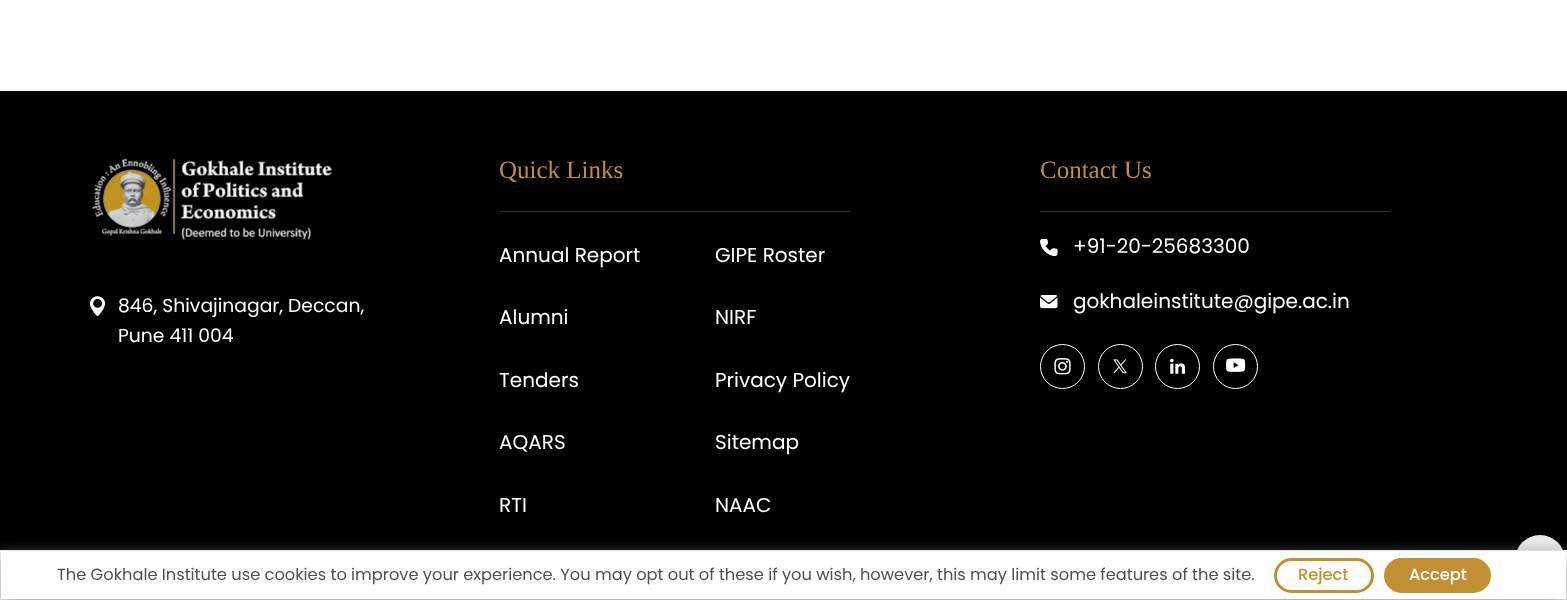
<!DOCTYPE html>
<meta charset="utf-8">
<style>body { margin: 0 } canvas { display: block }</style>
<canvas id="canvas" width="1567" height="600"></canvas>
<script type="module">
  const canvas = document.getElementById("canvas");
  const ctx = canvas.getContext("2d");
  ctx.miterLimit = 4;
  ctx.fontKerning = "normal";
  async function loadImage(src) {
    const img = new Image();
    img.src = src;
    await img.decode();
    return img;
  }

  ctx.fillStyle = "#ffffff";
  ctx.fillRect(0, 0, 1567, 600);
  ctx.fillStyle = "#000000";
  ctx.fillRect(0, 91, 1567, 459);
  ctx.fillStyle = "#303030";
  ctx.fillRect(500, 211, 350, 1);
  ctx.font = "25px Liberation Serif";
  ctx.fillStyle = "#c29032";
  ctx.fillText("Quick Links", 499, 178);
  ctx.font = "20px Poppins";
  ctx.fillStyle = "#ffffff";
  ctx.fillText("Annual Report", 499, 262);
  ctx.fillText("GIPE Roster", 715, 262);
  ctx.fillText("Alumni", 499, 324);
  ctx.fillText("NIRF", 715, 324);
  ctx.fillText("Tenders", 499, 387);
  ctx.fillText("Privacy Policy", 715, 387);
  ctx.fillText("AQARS", 499, 449);
  ctx.fillText("Sitemap", 715, 449);
  ctx.fillText("RTI", 499, 512);
  ctx.fillText("NAAC", 715, 512);
  ctx.fillStyle = "#303030";
  ctx.fillRect(1040, 211, 350, 1);
  ctx.font = "25px Liberation Serif";
  ctx.fillStyle = "#c29032";
  ctx.fillText("Contact Us", 1040, 178);
  ctx.drawImage(await loadImage("img1.png"), 1040, 239, 18, 17);
  ctx.font = "20px Poppins";
  ctx.fillStyle = "#ffffff";
  ctx.fillText("+91-20-25683300", 1073, 253);
  ctx.drawImage(await loadImage("img2.png"), 1040, 295, 18, 14);
  ctx.fillText("gokhaleinstitute@gipe.ac.in", 1073, 308);
  ctx.beginPath();
  ctx.arc(1062.5, 366.5, 22, 0, Math.PI * 2);
  ctx.strokeStyle = "#ffffff";
  ctx.stroke();
  ctx.drawImage(await loadImage("img3.png"), 1054, 358, 17, 17);
  ctx.beginPath();
  ctx.arc(1120.5, 366.5, 22, 0, Math.PI * 2);
  ctx.stroke();
  ctx.drawImage(await loadImage("img4.png"), 1113, 359, 14, 15);
  ctx.beginPath();
  ctx.arc(1177.5, 366.5, 22, 0, Math.PI * 2);
  ctx.stroke();
  ctx.drawImage(await loadImage("img5.png"), 1170, 358, 15, 16);
  ctx.beginPath();
  ctx.arc(1235.5, 366.5, 22, 0, Math.PI * 2);
  ctx.stroke();
  ctx.drawImage(await loadImage("img6.png"), 1226, 358, 20, 14);
  ctx.drawImage(await loadImage("img7.png"), 92, 158, 240, 82);
  ctx.drawImage(await loadImage("img8.png"), 90, 296, 15, 20);
  ctx.font = "18.75px Poppins";
  ctx.fillText("846, Shivajinagar, Deccan,", 118, 312);
  ctx.fillText("Pune 411 004", 118, 342);
  ctx.fillStyle = "#ebecee";
  ctx.beginPath();
  ctx.arc(1540, 560, 25, 0, Math.PI * 2);
  ctx.fill();
  ctx.fillStyle = "rgba(172, 171, 171, 0.3)";
  ctx.filter = "blur(6px)";
  ctx.beginPath();
  ctx.rect(0, 549, 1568, 50);
  ctx.fill();
  ctx.filter = "none";
  ctx.fillStyle = "#ffffff";
  ctx.beginPath();
  ctx.rect(0.5, 550.5, 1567, 49);
  ctx.fill();
  ctx.strokeStyle = "#f4f4f4";
  ctx.stroke();
  ctx.save();
  ctx.beginPath();
  ctx.moveTo(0, 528);
  ctx.lineTo(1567, 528);
  ctx.lineTo(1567, 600);
  ctx.lineTo(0, 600);
  ctx.closePath();
  ctx.moveTo(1, 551);
  ctx.lineTo(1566, 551);
  ctx.lineTo(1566, 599);
  ctx.lineTo(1, 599);
  ctx.closePath();
  ctx.clip("evenodd");
  ctx.fillStyle = "rgba(0, 0, 0, 0.35)";
  ctx.filter = "blur(9.5px)";
  ctx.beginPath();
  ctx.rect(1, 558, 1565, 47);
  ctx.fill();
  ctx.filter = "none";
  ctx.restore();
  ctx.font = "16.25px Poppins";
  ctx.fillStyle = "#505050";
  ctx.fillText("The Gokhale Institute use cookies to improve your experience. You may opt out of these if you wish, however, this may limit some features of the site.", 57, 580);
  ctx.beginPath();
  ctx.roundRect(1275.5, 559.5, 97, 32, 16);
  ctx.strokeStyle = "#c29032";
  ctx.lineWidth = 3;
  ctx.stroke();
  ctx.font = "500 16.25px Poppins";
  ctx.fillStyle = "#c29032";
  ctx.fillText("Reject", 1298, 580);
  ctx.beginPath();
  ctx.roundRect(1385.5, 559.5, 104, 32, 16);
  ctx.fill();
  ctx.stroke();
  ctx.fillStyle = "#ffffff";
  ctx.fillText("Accept", 1409, 580);
</script>
